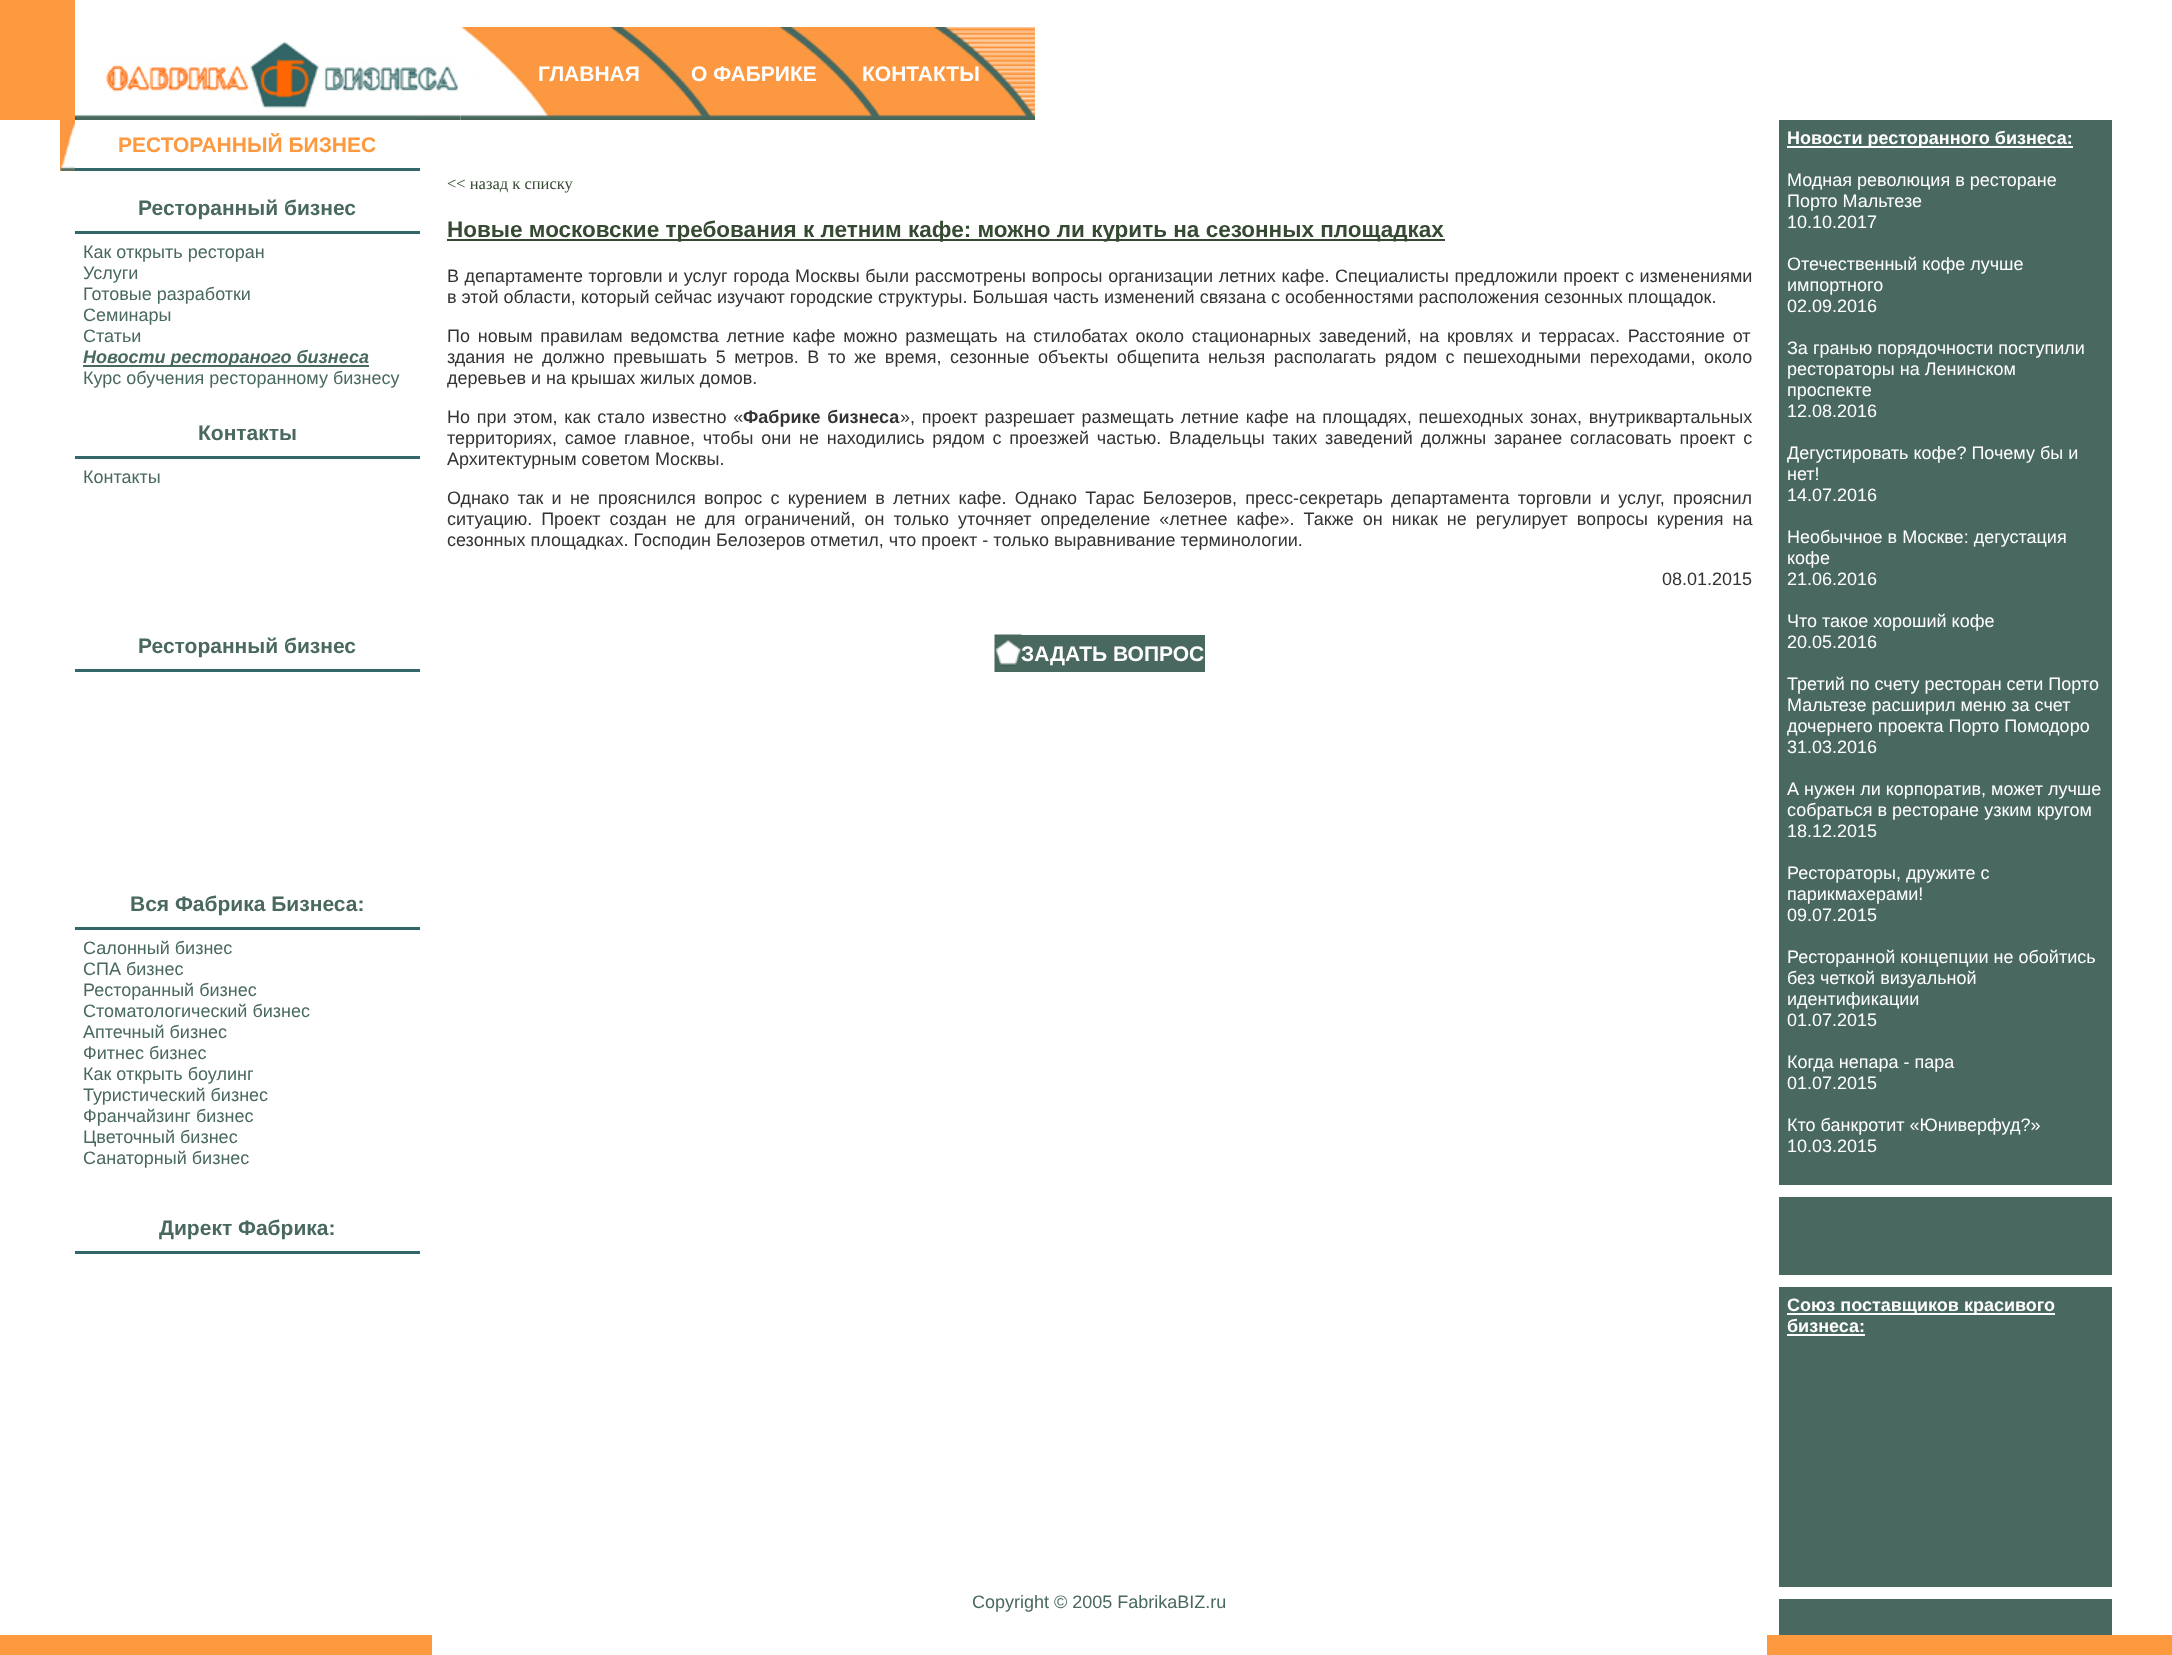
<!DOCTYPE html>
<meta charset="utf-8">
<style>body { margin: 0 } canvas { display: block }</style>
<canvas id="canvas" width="2172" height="1655"></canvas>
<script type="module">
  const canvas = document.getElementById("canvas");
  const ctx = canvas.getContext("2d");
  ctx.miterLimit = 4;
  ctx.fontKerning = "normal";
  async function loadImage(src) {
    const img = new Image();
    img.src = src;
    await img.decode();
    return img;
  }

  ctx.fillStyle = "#ffffff";
  ctx.fillRect(0, 0, 2172, 1655);
  ctx.fillStyle = "#fd993e";
  ctx.fillRect(0, 0, 75, 120);
  ctx.drawImage(await loadImage("img2.png"), 460, 27, 575, 93);
  ctx.drawImage(await loadImage("img1.png"), 75, 41, 386, 79);
  ctx.font = "bold 21px Liberation Sans";
  ctx.fillStyle = "#ffffff";
  ctx.fillText("ГЛАВНАЯ", 538, 81);
  ctx.fillText("О ФАБРИКЕ", 691, 81);
  ctx.fillText("КОНТАКТЫ", 862, 81);
  ctx.drawImage(await loadImage("img3.png"), 60, 120, 15, 51);
  ctx.fillStyle = "#fd993e";
  ctx.fillText("РЕСТОРАННЫЙ БИЗНЕС", 118, 152);
  ctx.fillStyle = "#336668";
  ctx.fillRect(75, 168, 345, 3);
  ctx.fillStyle = "#496860";
  ctx.fillText("Ресторанный бизнес", 138, 215);
  ctx.fillStyle = "#336668";
  ctx.fillRect(75, 231, 345, 3);
  ctx.font = "18px Liberation Sans";
  ctx.fillStyle = "#496860";
  ctx.fillText("Как открыть ресторан", 83, 258);
  ctx.fillText("Услуги", 83, 279);
  ctx.fillText("Готовые разработки", 83, 300);
  ctx.fillText("Семинары", 83, 321);
  ctx.fillText("Статьи", 83, 342);
  ctx.fillRect(83, 365, 286, 2);
  ctx.font = "italic bold 18px Liberation Sans";
  ctx.fillText("Новости рестораного бизнеса", 83, 363);
  ctx.font = "18px Liberation Sans";
  ctx.fillText("Курс обучения ресторанному бизнесу", 83, 384);
  ctx.font = "bold 21px Liberation Sans";
  ctx.fillText("Контакты", 198, 440);
  ctx.fillStyle = "#336668";
  ctx.fillRect(75, 456, 345, 3);
  ctx.font = "18px Liberation Sans";
  ctx.fillStyle = "#496860";
  ctx.fillText("Контакты", 83, 483);
  ctx.font = "bold 21px Liberation Sans";
  ctx.fillText("Ресторанный бизнес", 138, 653);
  ctx.fillStyle = "#336668";
  ctx.fillRect(75, 669, 345, 3);
  ctx.fillStyle = "#496860";
  ctx.fillText("Вся Фабрика Бизнеса:", 130, 911);
  ctx.fillStyle = "#336668";
  ctx.fillRect(75, 927, 345, 3);
  ctx.font = "18px Liberation Sans";
  ctx.fillStyle = "#496860";
  ctx.fillText("Салонный бизнес", 83, 954);
  ctx.fillText("СПА бизнес", 83, 975);
  ctx.fillText("Ресторанный бизнес", 83, 996);
  ctx.fillText("Стоматологический бизнес", 83, 1017);
  ctx.fillText("Аптечный бизнес", 83, 1038);
  ctx.fillText("Фитнес бизнес", 83, 1059);
  ctx.fillText("Как открыть боулинг", 83, 1080);
  ctx.fillText("Туристический бизнес", 83, 1101);
  ctx.fillText("Франчайзинг бизнес", 83, 1122);
  ctx.fillText("Цветочный бизнес", 83, 1143);
  ctx.fillText("Санаторный бизнес", 83, 1164);
  ctx.font = "bold 21px Liberation Sans";
  ctx.fillText("Директ Фабрика:", 159, 1235);
  ctx.fillStyle = "#336668";
  ctx.fillRect(75, 1251, 345, 3);
  ctx.font = "16.5px Liberation Serif";
  ctx.fillStyle = "#364a33";
  ctx.fillText("<< назад к списку", 447, 189);
  ctx.fillRect(447, 239, 998, 2);
  ctx.font = "bold 22.5px Liberation Sans";
  ctx.fillText("Новые московские требования к летним кафе: можно ли курить на сезонных площадках", 447, 237);
  ctx.wordSpacing = "0.6px";
  ctx.font = "18px Liberation Sans";
  ctx.fillStyle = "#333333";
  ctx.fillText("В департаменте торговли и услуг города Москвы были рассмотрены вопросы организации летних кафе. Специалисты предложили проект с изменениями", 447, 282);
  ctx.wordSpacing = "0px";
  ctx.fillText("в этой области, который сейчас изучают городские структуры. Большая часть изменений связана с особенностями расположения сезонных площадок.", 447, 303);
  ctx.wordSpacing = "2.75px";
  ctx.fillText("По новым правилам ведомства летние кафе можно размещать на стилобатах около стационарных заведений, на кровлях и террасах. Расстояние от", 447, 342);
  ctx.wordSpacing = "3.5px";
  ctx.fillText("здания не должно превышать 5 метров. В то же время, сезонные объекты общепита нельзя располагать рядом с пешеходными переходами, около", 447, 363);
  ctx.wordSpacing = "0px";
  ctx.fillText("деревьев и на крышах жилых домов.", 447, 384);
  ctx.wordSpacing = "1.75px";
  ctx.fillText("Но при этом, как стало известно «", 447, 423);
  ctx.font = "bold 18px Liberation Sans";
  ctx.fillText("Фабрике бизнеса", 743, 423);
  ctx.font = "18px Liberation Sans";
  ctx.fillText("», проект разрешает размещать летние кафе на площадях, пешеходных зонах, внутриквартальных", 900, 423);
  ctx.wordSpacing = "2.75px";
  ctx.fillText("территориях, самое главное, чтобы они не находились рядом с проезжей частью. Владельцы таких заведений должны заранее согласовать проект с", 447, 444);
  ctx.wordSpacing = "0px";
  ctx.fillText("Архитектурным советом Москвы.", 447, 465);
  ctx.wordSpacing = "3.25px";
  ctx.fillText("Однако так и не прояснился вопрос с курением в летних кафе. Однако Тарас Белозеров, пресс-секретарь департамента торговли и услуг, прояснил", 447, 504);
  ctx.wordSpacing = "4px";
  ctx.fillText("ситуацию. Проект создан не для ограничений, он только уточняет определение «летнее кафе». Также он никак не регулирует вопросы курения на", 447, 525);
  ctx.wordSpacing = "0px";
  ctx.fillText("сезонных площадках. Господин Белозеров отметил, что проект - только выравнивание терминологии.", 447, 546);
  ctx.fillText("08.01.2015", 1662, 585);
  ctx.fillStyle = "#496860";
  ctx.fillRect(1021, 635, 184, 37);
  ctx.drawImage(await loadImage("img4.png"), 994, 634, 28, 38);
  ctx.font = "bold 21px Liberation Sans";
  ctx.fillStyle = "#ffffff";
  ctx.fillText("ЗАДАТЬ ВОПРОС", 1021, 661);
  ctx.font = "18px Liberation Sans";
  ctx.fillStyle = "#496860";
  ctx.fillText("Copyright © 2005 FabrikaBIZ.ru", 972, 1608);
  ctx.fillRect(1779, 120, 333, 1065);
  ctx.fillStyle = "#ffffff";
  ctx.fillRect(1787, 146, 286, 2);
  ctx.font = "bold 18px Liberation Sans";
  ctx.fillText("Новости ресторанного бизнеса:", 1787, 144);
  ctx.font = "18px Liberation Sans";
  ctx.fillText("Модная революция в ресторане", 1787, 186);
  ctx.fillText("Порто Мальтезе", 1787, 207);
  ctx.fillText("10.10.2017", 1787, 228);
  ctx.fillText("Отечественный кофе лучше", 1787, 270);
  ctx.fillText("импортного", 1787, 291);
  ctx.fillText("02.09.2016", 1787, 312);
  ctx.fillText("За гранью порядочности поступили", 1787, 354);
  ctx.fillText("рестораторы на Ленинском", 1787, 375);
  ctx.fillText("проспекте", 1787, 396);
  ctx.fillText("12.08.2016", 1787, 417);
  ctx.fillText("Дегустировать кофе? Почему бы и", 1787, 459);
  ctx.fillText("нет!", 1787, 480);
  ctx.fillText("14.07.2016", 1787, 501);
  ctx.fillText("Необычное в Москве: дегустация", 1787, 543);
  ctx.fillText("кофе", 1787, 564);
  ctx.fillText("21.06.2016", 1787, 585);
  ctx.fillText("Что такое хороший кофе", 1787, 627);
  ctx.fillText("20.05.2016", 1787, 648);
  ctx.fillText("Третий по счету ресторан сети Порто", 1787, 690);
  ctx.fillText("Мальтезе расширил меню за счет", 1787, 711);
  ctx.fillText("дочернего проекта Порто Помодоро", 1787, 732);
  ctx.fillText("31.03.2016", 1787, 753);
  ctx.fillText("А нужен ли корпоратив, может лучше", 1787, 795);
  ctx.fillText("собраться в ресторане узким кругом", 1787, 816);
  ctx.fillText("18.12.2015", 1787, 837);
  ctx.fillText("Рестораторы, дружите с", 1787, 879);
  ctx.fillText("парикмахерами!", 1787, 900);
  ctx.fillText("09.07.2015", 1787, 921);
  ctx.fillText("Ресторанной концепции не обойтись", 1787, 963);
  ctx.fillText("без четкой визуальной", 1787, 984);
  ctx.fillText("идентификации", 1787, 1005);
  ctx.fillText("01.07.2015", 1787, 1026);
  ctx.fillText("Когда непара - пара", 1787, 1068);
  ctx.fillText("01.07.2015", 1787, 1089);
  ctx.fillText("Кто банкротит «Юниверфуд?»", 1787, 1131);
  ctx.fillText("10.03.2015", 1787, 1152);
  ctx.fillStyle = "#496860";
  ctx.fillRect(1779, 1197, 333, 78);
  ctx.fillRect(1779, 1287, 333, 300);
  ctx.fillStyle = "#ffffff";
  ctx.fillRect(1787, 1313, 268, 2);
  ctx.font = "bold 18px Liberation Sans";
  ctx.fillText("Союз поставщиков красивого", 1787, 1311);
  ctx.fillText("бизнеса:", 1787, 1332);
  ctx.fillRect(1787, 1334, 78, 2);
  ctx.fillStyle = "#496860";
  ctx.fillRect(1779, 1599, 333, 36);
  ctx.fillStyle = "#fd993e";
  ctx.fillRect(0, 1635, 432, 20);
  ctx.fillRect(1767, 1635, 405, 20);
</script>
